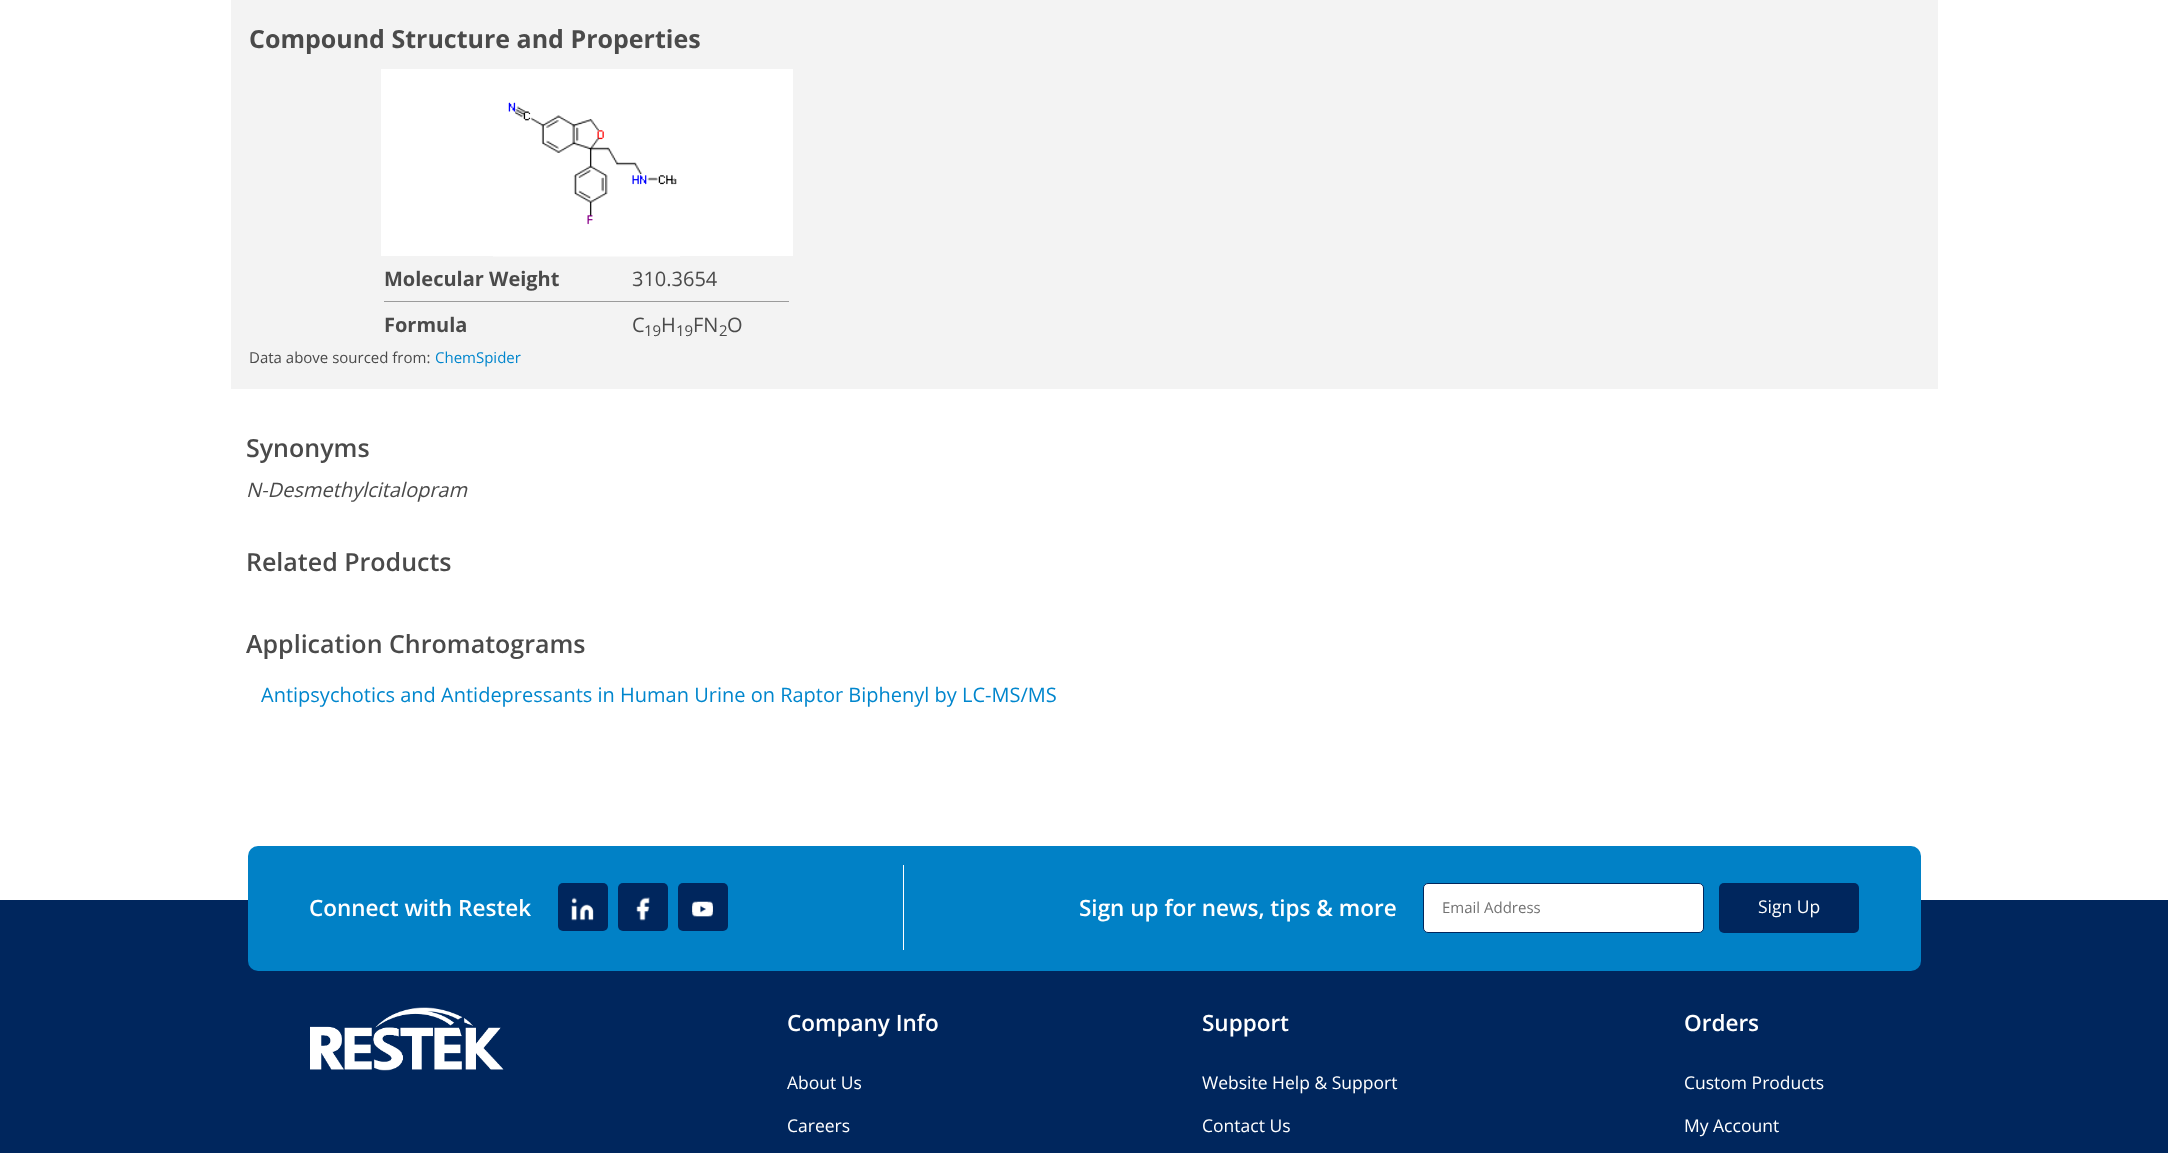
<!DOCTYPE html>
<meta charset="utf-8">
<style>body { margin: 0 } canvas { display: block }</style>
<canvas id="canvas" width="2168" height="1153"></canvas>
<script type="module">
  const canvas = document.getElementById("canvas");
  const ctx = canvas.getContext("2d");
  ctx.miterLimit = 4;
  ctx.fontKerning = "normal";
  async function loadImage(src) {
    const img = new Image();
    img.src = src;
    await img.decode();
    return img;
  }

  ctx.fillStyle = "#ffffff";
  ctx.fillRect(0, 0, 2168, 1153);
  ctx.fillStyle = "#f3f3f3";
  ctx.fillRect(231, 0, 1707, 389);
  ctx.font = "bold 25px Open Sans";
  ctx.fillStyle = "#4a4a4a";
  ctx.fillText("Compound Structure and Properties", 249, 48);
  ctx.fillStyle = "#ffffff";
  ctx.fillRect(381, 69, 412, 187);
  ctx.drawImage(await loadImage("img1.png"), 493, 102, 187, 155);
  ctx.font = "bold 20px Open Sans";
  ctx.fillStyle = "#4a4a4a";
  ctx.fillText("Molecular Weight", 384, 286);
  ctx.fillStyle = "#9b9b9b";
  ctx.fillRect(384, 301, 405, 1);
  ctx.font = "20px Open Sans";
  ctx.fillStyle = "#4a4a4a";
  ctx.fillText("310.3654", 632, 286);
  ctx.font = "bold 20px Open Sans";
  ctx.fillText("Formula", 384, 332);
  ctx.font = "20px Open Sans";
  ctx.fillText("C", 632, 332);
  ctx.font = "15px Open Sans";
  ctx.fillText("19", 644, 336);
  ctx.font = "20px Open Sans";
  ctx.fillText("H", 661, 332);
  ctx.font = "15px Open Sans";
  ctx.fillText("19", 676, 336);
  ctx.font = "20px Open Sans";
  ctx.fillText("FN", 693, 332);
  ctx.font = "15px Open Sans";
  ctx.fillText("2", 719, 336);
  ctx.font = "20px Open Sans";
  ctx.fillText("O", 727, 332);
  ctx.font = "15px Open Sans";
  ctx.fillText("Data above sourced from:", 249, 363);
  ctx.fillStyle = "#0086cd";
  ctx.fillText("ChemSpider", 435, 363);
  ctx.font = "600 25px Open Sans";
  ctx.fillStyle = "#4a4a4a";
  ctx.fillText("Synonyms", 246, 457);
  ctx.font = "italic 20px Open Sans";
  ctx.fillText("N-Desmethylcitalopram", 246, 497);
  ctx.font = "600 25px Open Sans";
  ctx.fillText("Related Products", 246, 571);
  ctx.fillText("Application Chromatograms", 246, 653);
  ctx.font = "20px Open Sans";
  ctx.fillStyle = "#0086cd";
  ctx.fillText("Antipsychotics and Antidepressants in Human Urine on Raptor Biphenyl by LC-MS/MS", 261, 702);
  ctx.fillStyle = "#00265d";
  ctx.fillRect(0, 900, 2168, 253);
  ctx.fillStyle = "#0181c6";
  ctx.beginPath();
  ctx.roundRect(248, 846, 1673, 125, 10);
  ctx.fill();
  ctx.font = "600 22.5px Open Sans";
  ctx.fillStyle = "#ffffff";
  ctx.fillText("Connect with Restek", 309, 916);
  ctx.fillStyle = "#00265d";
  ctx.beginPath();
  ctx.roundRect(558, 883, 50, 48, 5);
  ctx.fill();
  ctx.drawImage(await loadImage("img2.png"), 571, 897, 23, 24);
  ctx.beginPath();
  ctx.roundRect(618, 883, 50, 48, 5);
  ctx.fill();
  ctx.drawImage(await loadImage("img3.png"), 636, 897, 14, 24);
  ctx.beginPath();
  ctx.roundRect(678, 883, 50, 48, 5);
  ctx.fill();
  ctx.drawImage(await loadImage("img4.png"), 692, 901, 21, 16);
  ctx.fillStyle = "#ffffff";
  ctx.fillRect(903, 865, 1, 85);
  ctx.fillText("Sign up for news, tips & more", 1079, 916);
  ctx.beginPath();
  ctx.roundRect(1423.5, 883.5, 280, 49, 4.5);
  ctx.fill();
  ctx.strokeStyle = "#00265d";
  ctx.stroke();
  ctx.font = "15px Open Sans";
  ctx.fillStyle = "#727272";
  ctx.fillText("Email Address", 1442, 913);
  ctx.fillStyle = "#00265d";
  ctx.beginPath();
  ctx.roundRect(1719, 883, 140, 50, 5);
  ctx.fill();
  ctx.font = "17.5px Open Sans";
  ctx.fillStyle = "#ffffff";
  ctx.fillText("Sign Up", 1758, 913);
  ctx.drawImage(await loadImage("img5.png"), 310, 1007, 194, 64);
  ctx.font = "600 22.5px Open Sans";
  ctx.fillText("Company Info", 787, 1031);
  ctx.font = "17.5px Open Sans";
  ctx.fillText("About Us", 787, 1089);
  ctx.fillText("Careers", 787, 1132);
  ctx.font = "600 22.5px Open Sans";
  ctx.fillText("Support", 1202, 1031);
  ctx.font = "17.5px Open Sans";
  ctx.fillText("Website Help & Support", 1202, 1089);
  ctx.fillText("Contact Us", 1202, 1132);
  ctx.font = "600 22.5px Open Sans";
  ctx.fillText("Orders", 1684, 1031);
  ctx.font = "17.5px Open Sans";
  ctx.fillText("Custom Products", 1684, 1089);
  ctx.fillText("My Account", 1684, 1132);
</script>
